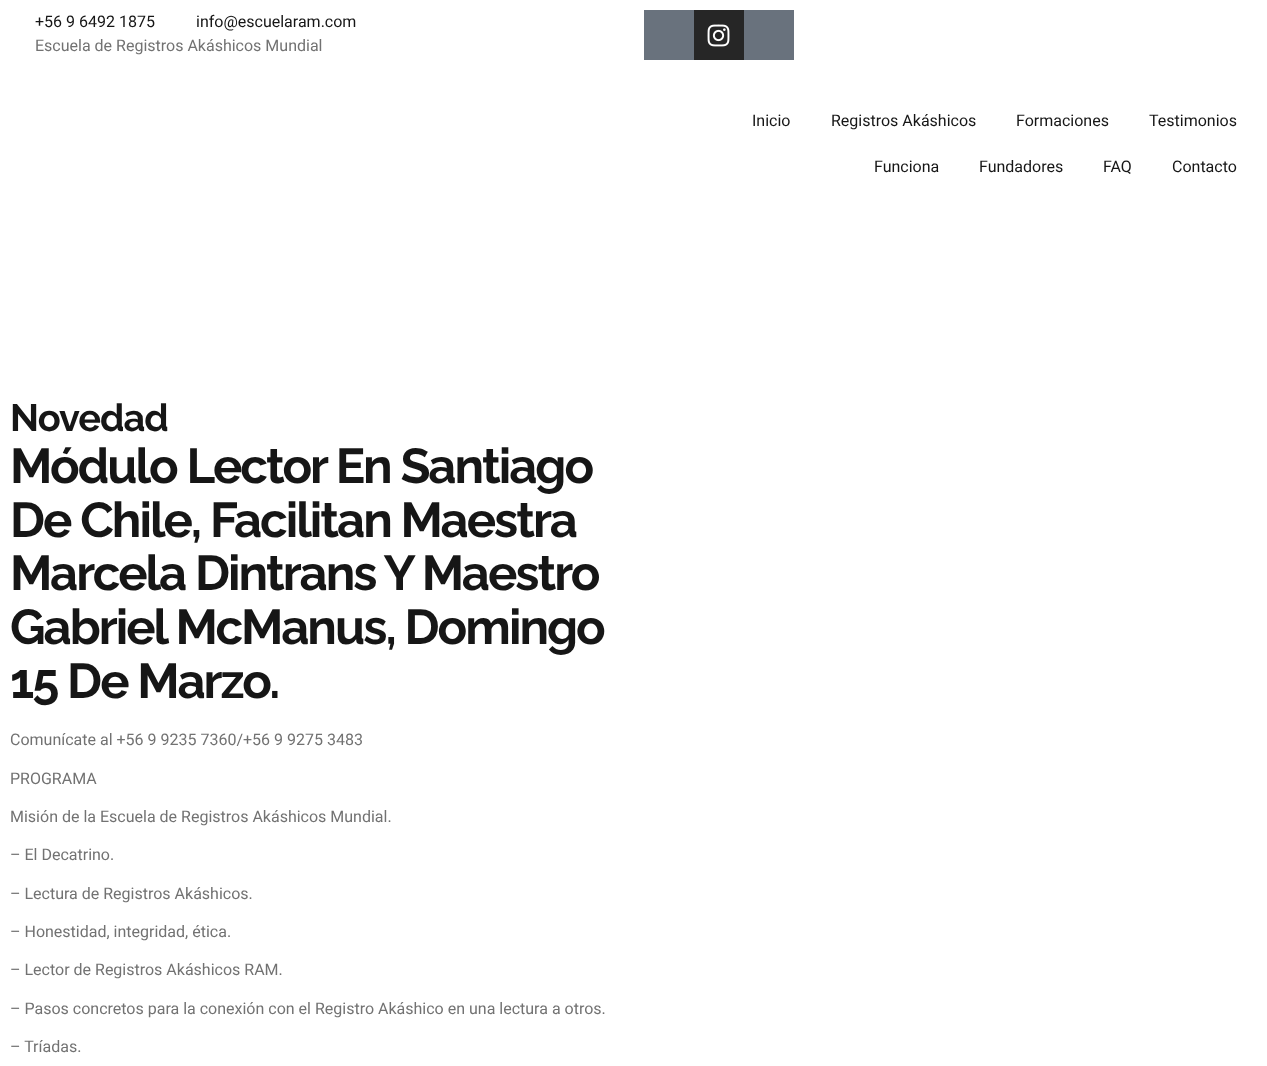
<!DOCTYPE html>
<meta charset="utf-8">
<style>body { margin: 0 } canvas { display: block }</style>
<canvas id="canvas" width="1267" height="1066"></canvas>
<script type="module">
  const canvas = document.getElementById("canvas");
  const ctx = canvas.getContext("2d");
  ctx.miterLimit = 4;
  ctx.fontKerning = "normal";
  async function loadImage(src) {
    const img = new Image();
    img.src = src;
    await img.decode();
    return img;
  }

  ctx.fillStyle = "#ffffff";
  ctx.fillRect(0, 0, 1267, 1066);
  ctx.font = "16px Roboto";
  ctx.fillStyle = "#161616";
  ctx.fillText("+56 9 6492 1875", 35, 27);
  ctx.fillText("info@escuelaram.com", 196, 27);
  ctx.fillStyle = "#727272";
  ctx.fillText("Escuela de Registros Akáshicos Mundial", 35, 51);
  ctx.fillStyle = "#69727d";
  ctx.fillRect(644, 10, 50, 50);
  ctx.fillStyle = "#262626";
  ctx.fillRect(694, 10, 50, 50);
  ctx.drawImage(await loadImage("img1.png"), 707, 24, 23, 23);
  ctx.fillStyle = "#69727d";
  ctx.fillRect(744, 10, 50, 50);
  ctx.fillStyle = "#161616";
  ctx.fillText("Inicio", 752, 126);
  ctx.fillText("Registros Akáshicos", 831, 126);
  ctx.fillText("Formaciones", 1016, 126);
  ctx.fillText("Testimonios", 1149, 126);
  ctx.fillText("Funciona", 874, 172);
  ctx.fillText("Fundadores", 979, 172);
  ctx.fillText("FAQ", 1103, 172);
  ctx.fillText("Contacto", 1172, 172);
  ctx.letterSpacing = "-1px";
  ctx.font = "bold 38px Raleway";
  ctx.fillText("Novedad", 10, 431);
  ctx.letterSpacing = "-2px";
  ctx.font = "bold 49px Raleway";
  ctx.fillText("Módulo Lector En Santiago", 10, 483);
  ctx.fillText("De Chile, Facilitan Maestra", 10, 537);
  ctx.fillText("Marcela Dintrans Y Maestro", 10, 590);
  ctx.fillText("Gabriel McManus, Domingo", 10, 644);
  ctx.fillText("15 De Marzo.", 10, 698);
  ctx.letterSpacing = "0px";
  ctx.font = "16px Roboto";
  ctx.fillStyle = "#727272";
  ctx.fillText("Comunícate al +56 9 9235 7360/+56 9 9275 3483", 10, 745);
  ctx.fillText("PROGRAMA", 10, 784);
  ctx.fillText("Misión de la Escuela de Registros Akáshicos Mundial.", 10, 822);
  ctx.fillText("– El Decatrino.", 10, 860);
  ctx.fillText("– Lectura de Registros Akáshicos.", 10, 899);
  ctx.fillText("– Honestidad, integridad, ética.", 10, 937);
  ctx.fillText("– Lector de Registros Akáshicos RAM.", 10, 975);
  ctx.fillText("– Pasos concretos para la conexión con el Registro Akáshico en una lectura a otros.", 10, 1014);
  ctx.fillText("– Tríadas.", 10, 1052);
</script>
